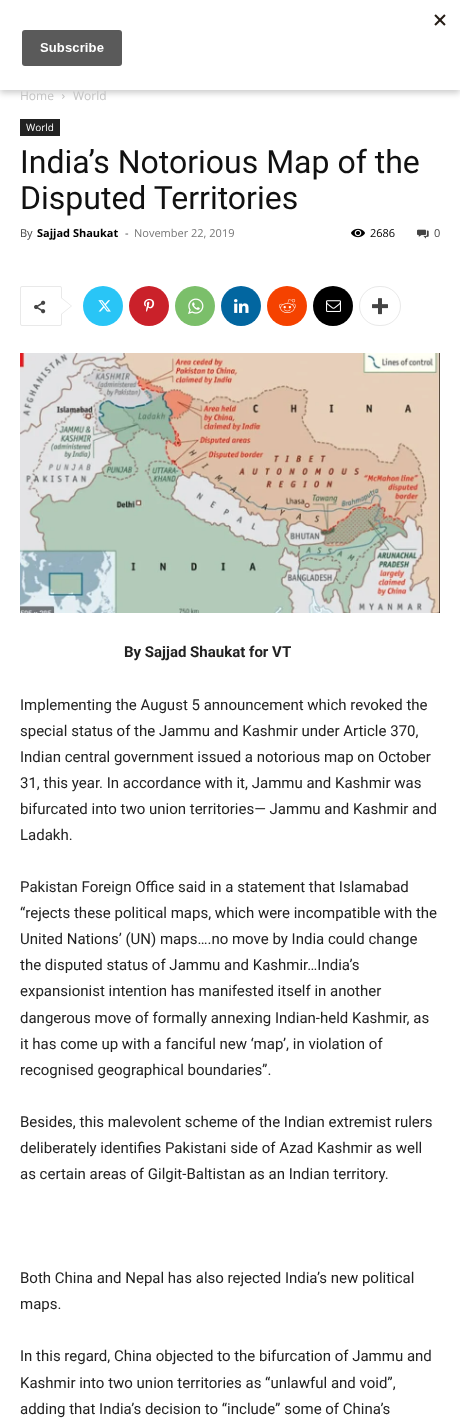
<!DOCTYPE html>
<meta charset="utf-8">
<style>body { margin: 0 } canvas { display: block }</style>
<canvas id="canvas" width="460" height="1421"></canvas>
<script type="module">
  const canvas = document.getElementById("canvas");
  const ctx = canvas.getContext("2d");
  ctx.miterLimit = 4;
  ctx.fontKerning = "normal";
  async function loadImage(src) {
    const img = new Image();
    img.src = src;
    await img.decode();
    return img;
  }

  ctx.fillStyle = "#ffffff";
  ctx.fillRect(0, 0, 460, 1421);
  ctx.drawImage(await loadImage("img2.png"), 62, 94, 3, 5);
  ctx.fillStyle = "rgba(0, 0, 0, 0.2)";
  ctx.filter = "blur(3px)";
  ctx.beginPath();
  ctx.rect(0, 3, 460, 90);
  ctx.fill();
  ctx.filter = "none";
  ctx.fillStyle = "#ffffff";
  ctx.fillRect(0, 0, 460, 90);
  ctx.drawImage(await loadImage("img1.png"), 22, 14, 424, 52);
  ctx.font = "12px Open Sans";
  ctx.fillStyle = "#c3c3c3";
  ctx.fillText("Home", 20, 100);
  ctx.fillText("World", 73, 100);
  ctx.fillStyle = "#222222";
  ctx.fillRect(20, 119, 40, 17);
  ctx.font = "10px Open Sans";
  ctx.fillStyle = "#ffffff";
  ctx.fillText("World", 26, 131);
  ctx.font = "32px Roboto";
  ctx.fillStyle = "#111111";
  ctx.fillText("India’s Notorious Map of the", 20, 173);
  ctx.fillText("Disputed Territories", 20, 209);
  ctx.font = "11px Open Sans";
  ctx.fillStyle = "#444444";
  ctx.fillText("By", 20, 237);
  ctx.font = "bold 11px Open Sans";
  ctx.fillStyle = "#000000";
  ctx.fillText("Sajjad Shaukat", 37, 237);
  ctx.font = "11px Open Sans";
  ctx.fillStyle = "#444444";
  ctx.fillText("-", 125, 237);
  ctx.fillStyle = "#767676";
  ctx.fillText("November 22, 2019", 134, 237);
  ctx.drawImage(await loadImage("img3.png"), 351, 228, 14, 10);
  ctx.fillStyle = "#000000";
  ctx.fillText("2686", 370, 237);
  ctx.drawImage(await loadImage("img4.png"), 417, 229, 12, 10);
  ctx.fillStyle = "#444444";
  ctx.fillText("0", 434, 237);
  ctx.beginPath();
  ctx.roundRect(20.5, 286.5, 41, 39, 1.5);
  ctx.strokeStyle = "#e9e9e9";
  ctx.stroke();
  ctx.fillStyle = "#e9e9e9";
  ctx.beginPath();
  ctx.moveTo(61, 315);
  ctx.lineTo(61, 297);
  ctx.lineTo(72, 306);
  ctx.closePath();
  ctx.fill();
  ctx.drawImage(await loadImage("img5.png"), 34, 300, 12, 14);
  ctx.fillStyle = "#ffffff";
  ctx.beginPath();
  ctx.moveTo(61, 314);
  ctx.lineTo(61, 298);
  ctx.lineTo(71, 306);
  ctx.closePath();
  ctx.fill();
  ctx.fillStyle = "#29c5f6";
  ctx.beginPath();
  ctx.arc(103, 306, 20, 0, Math.PI * 2);
  ctx.fill();
  ctx.drawImage(await loadImage("img6.png"), 98, 300, 13, 12);
  ctx.fillStyle = "#ca212a";
  ctx.beginPath();
  ctx.arc(149, 306, 20, 0, Math.PI * 2);
  ctx.fill();
  ctx.drawImage(await loadImage("img7.png"), 144, 298, 11, 14);
  ctx.fillStyle = "#7bbf6a";
  ctx.beginPath();
  ctx.arc(195, 306, 20, 0, Math.PI * 2);
  ctx.fill();
  ctx.drawImage(await loadImage("img8.png"), 188, 298, 16, 16);
  ctx.fillStyle = "#0266a0";
  ctx.beginPath();
  ctx.arc(241, 306, 20, 0, Math.PI * 2);
  ctx.fill();
  ctx.drawImage(await loadImage("img9.png"), 234, 299, 15, 14);
  ctx.fillStyle = "#f54200";
  ctx.beginPath();
  ctx.arc(287, 306, 20, 0, Math.PI * 2);
  ctx.fill();
  ctx.drawImage(await loadImage("img10.png"), 279, 299, 17, 14);
  ctx.fillStyle = "#000000";
  ctx.beginPath();
  ctx.arc(333, 306, 20, 0, Math.PI * 2);
  ctx.fill();
  ctx.drawImage(await loadImage("img11.png"), 326, 300, 15, 12);
  ctx.beginPath();
  ctx.roundRect(359.5, 286.5, 41, 39, 19.5);
  ctx.stroke();
  ctx.drawImage(await loadImage("img12.png"), 372, 298, 16, 17);
  ctx.drawImage(await loadImage("img13.png"), 20, 353, 420, 260);
  ctx.font = "bold 15px Roboto";
  ctx.fillStyle = "#222222";
  ctx.fillText("By Sajjad Shaukat for VT", 124, 657);
  ctx.font = "15px Roboto";
  ctx.fillText("Implementing the August 5 announcement which revoked the", 20, 710);
  ctx.fillText("special status of the Jammu and Kashmir under Article 370,", 20, 736);
  ctx.fillText("Indian central government issued a notorious map on October", 20, 762);
  ctx.fillText("31, this year. In accordance with it, Jammu and Kashmir was", 20, 788);
  ctx.fillText("bifurcated into two union territories— Jammu and Kashmir and", 20, 814);
  ctx.fillText("Ladakh.", 20, 840);
  ctx.fillText("Pakistan Foreign Office said in a statement that Islamabad", 20, 892);
  ctx.fillText("“rejects these political maps, which were incompatible with the", 20, 918);
  ctx.fillText("United Nations’ (UN) maps….no move by India could change", 20, 944);
  ctx.fillText("the disputed status of Jammu and Kashmir…India’s", 20, 970);
  ctx.fillText("expansionist intention has manifested itself in another", 20, 996);
  ctx.fillText("dangerous move of formally annexing Indian-held Kashmir, as", 20, 1023);
  ctx.fillText("it has come up with a fanciful new ‘map’, in violation of", 20, 1049);
  ctx.fillText("recognised geographical boundaries”.", 20, 1075);
  ctx.fillText("Besides, this malevolent scheme of the Indian extremist rulers", 20, 1127);
  ctx.fillText("deliberately identifies Pakistani side of Azad Kashmir as well", 20, 1153);
  ctx.fillText("as certain areas of Gilgit-Baltistan as an Indian territory.", 20, 1179);
  ctx.fillText("Both China and Nepal has also rejected India’s new political", 20, 1283);
  ctx.fillText("maps.", 20, 1309);
  ctx.fillText("In this regard, China objected to the bifurcation of Jammu and", 20, 1361);
  ctx.fillText("Kashmir into two union territories as “unlawful and void”,", 20, 1388);
  ctx.fillText("adding that India’s decision to “include” some of China’s", 20, 1414);
</script>
